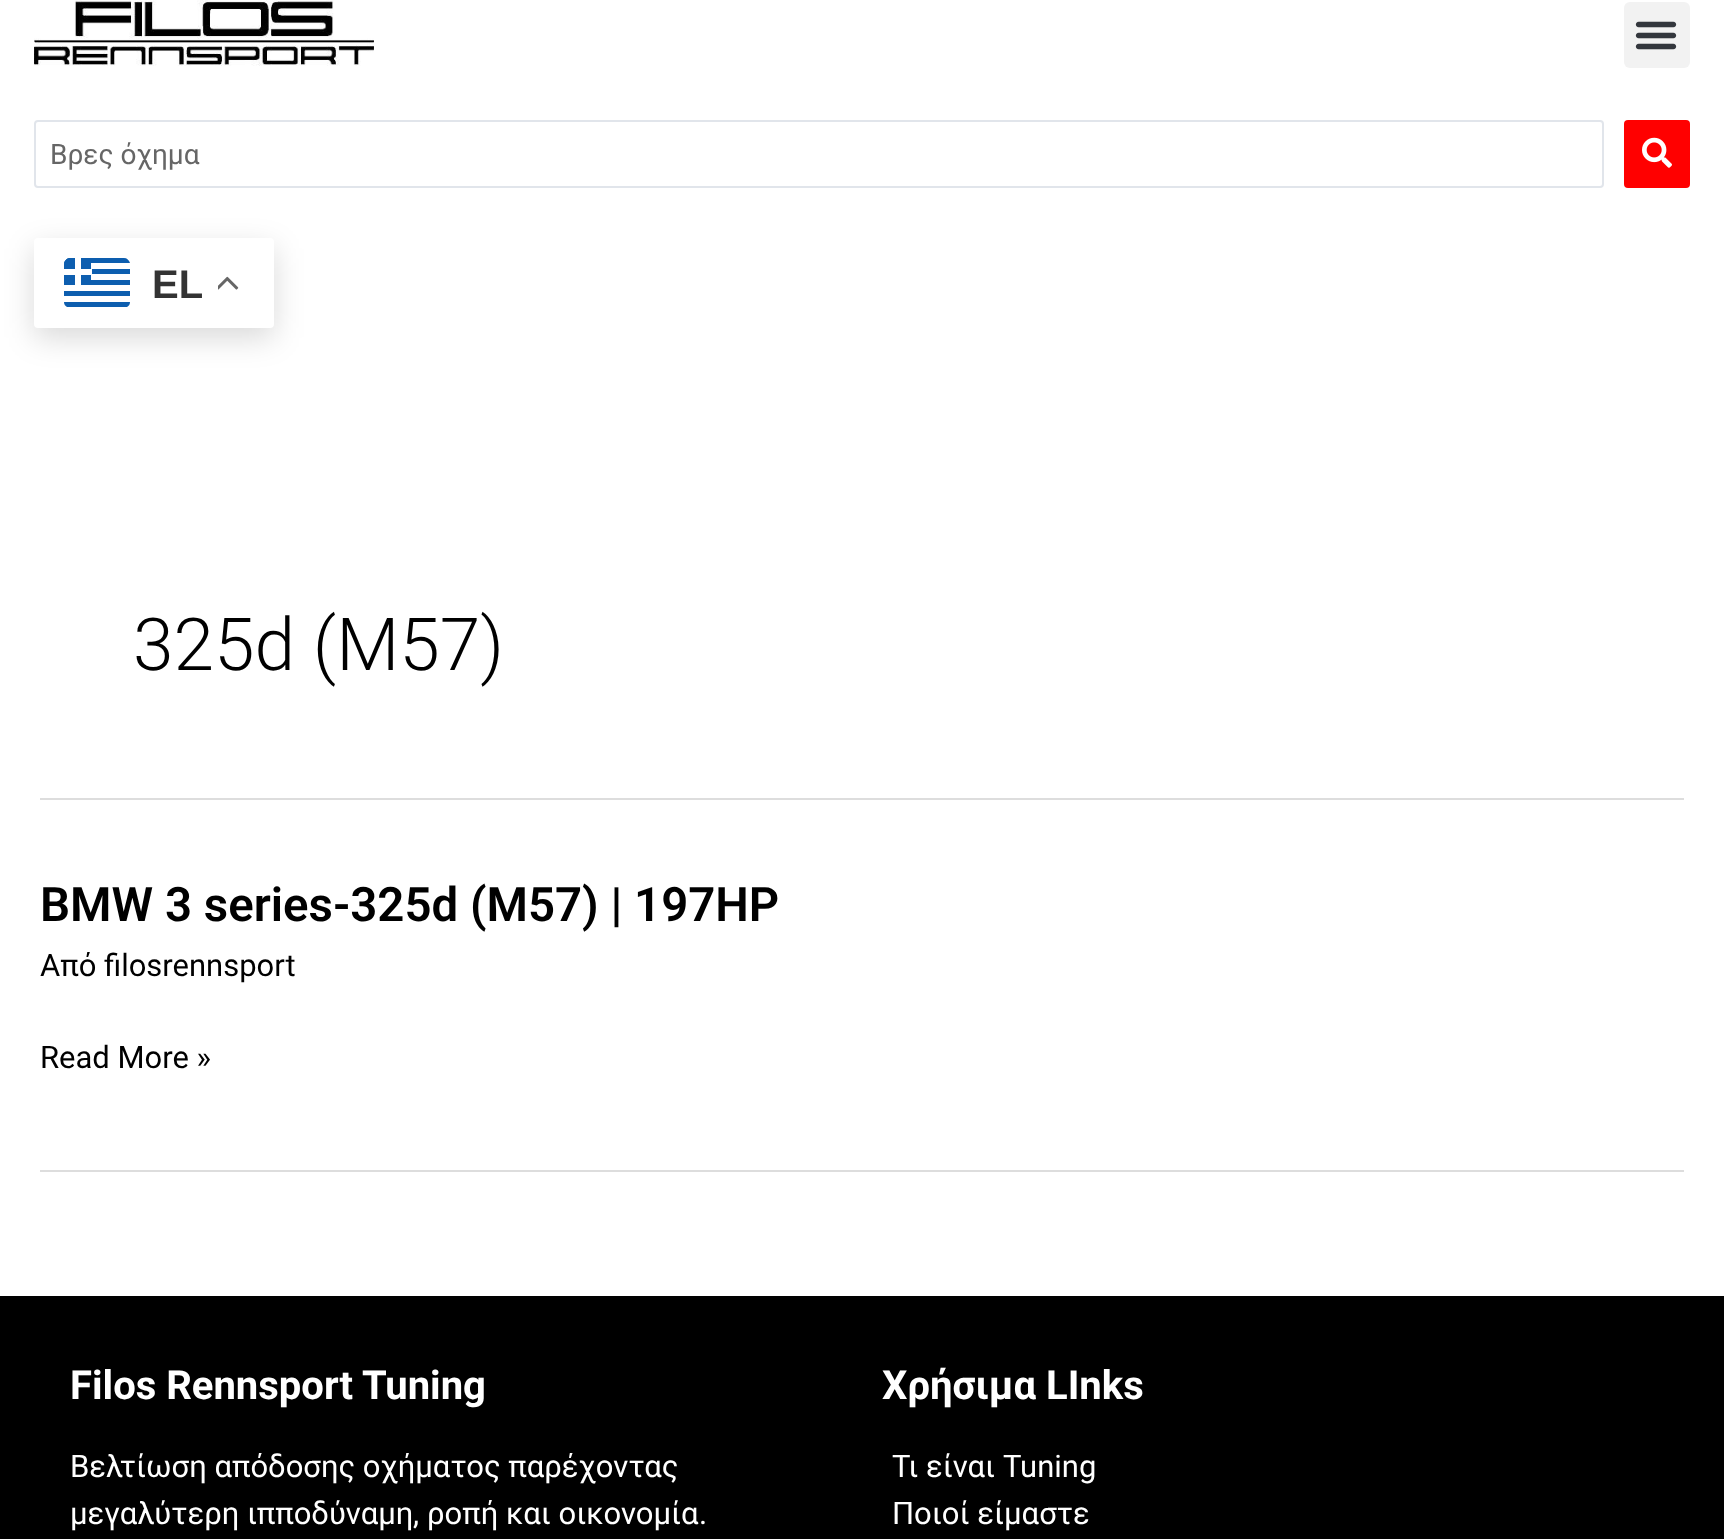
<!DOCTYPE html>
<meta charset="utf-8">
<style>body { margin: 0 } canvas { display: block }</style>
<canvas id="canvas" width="1724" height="1539"></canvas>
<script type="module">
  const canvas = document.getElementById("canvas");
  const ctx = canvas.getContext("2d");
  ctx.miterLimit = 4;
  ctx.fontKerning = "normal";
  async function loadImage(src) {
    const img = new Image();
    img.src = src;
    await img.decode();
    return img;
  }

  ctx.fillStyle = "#ffffff";
  ctx.fillRect(0, 0, 1724, 1539);
  ctx.drawImage(await loadImage("img1.png"), 34, 0, 340, 66);
  ctx.fillStyle = "#f2f2f2";
  ctx.beginPath();
  ctx.roundRect(1624, 2, 66, 66, 6);
  ctx.fill();
  ctx.drawImage(await loadImage("img2.png"), 1635, 21, 42, 29);
  ctx.beginPath();
  ctx.roundRect(35, 121, 1568, 66, 3);
  ctx.strokeStyle = "#e1e5eb";
  ctx.lineWidth = 2;
  ctx.stroke();
  ctx.font = "28px Roboto";
  ctx.fillStyle = "#666666";
  ctx.fillText("Βρες όχημα", 50, 164);
  ctx.fillStyle = "#ff0000";
  ctx.beginPath();
  ctx.roundRect(1624, 120, 66, 68, 4);
  ctx.fill();
  ctx.drawImage(await loadImage("img3.png"), 1642, 137, 30, 31);
  ctx.fillStyle = "rgba(0, 0, 0, 0.15)";
  ctx.filter = "blur(15px)";
  ctx.beginPath();
  ctx.roundRect(34, 248, 240, 90, 4);
  ctx.fill();
  ctx.filter = "none";
  ctx.fillStyle = "#ffffff";
  ctx.beginPath();
  ctx.roundRect(34, 238, 240, 90, 4);
  ctx.fill();
  ctx.fillStyle = "#0d5eaf";
  ctx.beginPath();
  ctx.moveTo(70, 258);
  ctx.bezierCurveTo(67, 258, 65, 260, 64, 263);
  ctx.lineTo(130, 263);
  ctx.bezierCurveTo(129, 260, 127, 258, 124, 258);
  ctx.closePath();
  ctx.fill();
  ctx.fillRect(92, 269, 38, 5);
  ctx.fillRect(91, 280, 39, 5);
  ctx.fillRect(64, 291, 66, 5);
  ctx.beginPath();
  ctx.moveTo(70, 258);
  ctx.lineTo(91, 258);
  ctx.lineTo(91, 285);
  ctx.lineTo(64, 285);
  ctx.lineTo(64, 264);
  ctx.bezierCurveTo(64, 261, 67, 258, 70, 258);
  ctx.closePath();
  ctx.moveTo(64, 302);
  ctx.lineTo(130, 302);
  ctx.bezierCurveTo(130, 304, 129, 306, 127, 307);
  ctx.lineTo(67, 307);
  ctx.bezierCurveTo(65, 306, 64, 304, 64, 302);
  ctx.closePath();
  ctx.fill("evenodd");
  ctx.fillStyle = "#ffffff";
  ctx.fillRect(75, 258, 6, 28);
  ctx.fillRect(64, 269, 28, 6);
  ctx.font = "bold 40px Liberation Sans";
  ctx.fillStyle = "#333333";
  ctx.fillText("EL", 152, 298);
  ctx.drawImage(await loadImage("img4.png"), 218, 276, 21, 14);
  ctx.fillStyle = "#dddddd";
  ctx.fillRect(40, 798, 1644, 2);
  ctx.font = "300 73px Roboto";
  ctx.fillStyle = "#000000";
  ctx.fillText("325d (M57)", 133, 670);
  ctx.fillStyle = "#dddddd";
  ctx.fillRect(40, 1170, 1644, 2);
  ctx.font = "600 47.4px Roboto";
  ctx.fillStyle = "#000000";
  ctx.fillText("BMW 3 series-325d (M57) | 197HP", 40, 921);
  ctx.font = "31px Roboto";
  ctx.fillText("Από", 40, 976);
  ctx.font = "31px 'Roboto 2'";
  ctx.fillText("filosrennsport", 104, 976);
  ctx.fillText("Read More »", 40, 1068);
  ctx.fillRect(0, 1296, 1724, 243);
  ctx.font = "bold 40px Roboto";
  ctx.fillStyle = "#ffffff";
  ctx.fillText("Filos Rennsport Tuning", 70, 1399);
  ctx.font = "31px Roboto";
  ctx.fillText("Βελτίωση απόδοσης οχήματος παρέχοντας", 70, 1477);
  ctx.fillText("μεγαλύτερη ιπποδύναμη", 70, 1524);
  ctx.font = "31px 'Roboto 2'";
  ctx.fillText(",", 413, 1524);
  ctx.font = "31px Roboto";
  ctx.fillText("ροπή και οικονομία", 427, 1524);
  ctx.font = "31px 'Roboto 2'";
  ctx.fillText(".", 699, 1524);
  ctx.font = "bold 40px Roboto";
  ctx.fillText("Χρήσιμα LInks", 882, 1399);
  ctx.font = "31px Roboto";
  ctx.fillText("Τι είναι", 892, 1477);
  ctx.font = "31px 'Roboto 2'";
  ctx.fillText("Tuning", 1003, 1477);
  ctx.font = "31px Roboto";
  ctx.fillText("Ποιοί είμαστε", 892, 1524);
</script>
